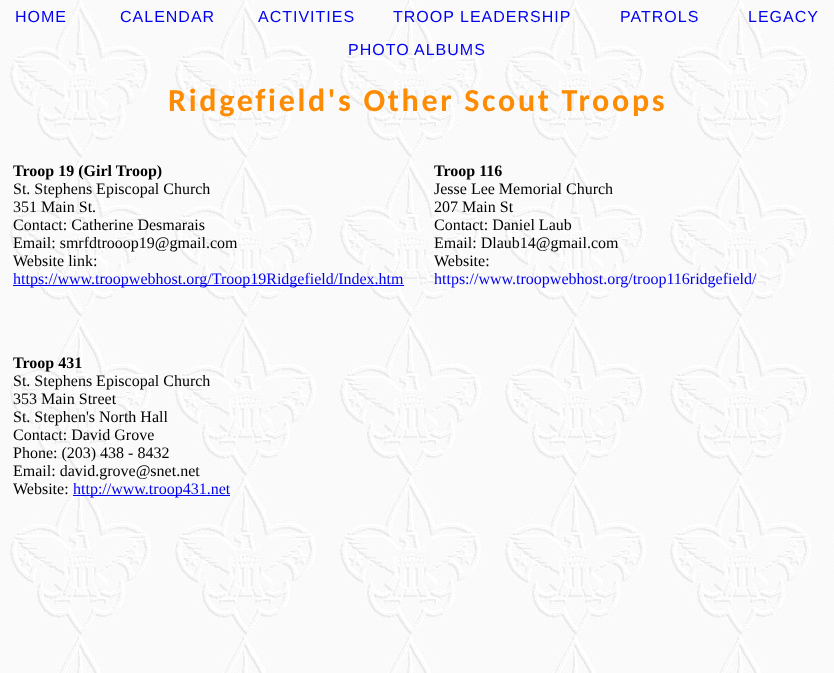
<!DOCTYPE html>
<meta charset="utf-8">
<style>body { margin: 0 } canvas { display: block }</style>
<canvas id="canvas" width="834" height="673"></canvas>
<script type="module">
  const canvas = document.getElementById("canvas");
  const ctx = canvas.getContext("2d");
  ctx.miterLimit = 4;
  ctx.fontKerning = "normal";
  async function loadImage(src) {
    const img = new Image();
    img.src = src;
    await img.decode();
    return img;
  }

  ctx.fillStyle = "#ffffff";
  ctx.fillRect(0, 0, 834, 673);
  ctx.drawImage(await loadImage("img1.png"), 0, 0, 834, 673);
  ctx.letterSpacing = "1px";
  ctx.font = "16px Liberation Sans";
  ctx.fillStyle = "#0000ee";
  ctx.fillText("HOME", 15, 22);
  ctx.fillText("CALENDAR", 120, 22);
  ctx.fillText("ACTIVITIES", 258, 22);
  ctx.fillText("TROOP LEADERSHIP", 393, 22);
  ctx.fillText("PATROLS", 620, 22);
  ctx.fillText("LEGACY", 748, 22);
  ctx.fillText("PHOTO", 348, 55);
  ctx.fillText("ALBUMS", 414, 55);
  ctx.letterSpacing = "2.7px";
  ctx.font = "bold 32px Carlito";
  ctx.fillStyle = "#fd8c03";
  ctx.fillText("Ridgefield's Other Scout Troops", 168, 111);
  ctx.letterSpacing = "0px";
  ctx.font = "bold 16px Liberation Serif";
  ctx.fillStyle = "#000000";
  ctx.fillText("Troop 19 (Girl Troop)", 13, 176);
  ctx.font = "16px Liberation Serif";
  ctx.fillText("St. Stephens Episcopal Church", 13, 194);
  ctx.fillText("351 Main St.", 13, 212);
  ctx.fillText("Contact: Catherine Desmarais", 13, 230);
  ctx.fillText("Email: smrfdtrooop19@gmail.com", 13, 248);
  ctx.fillText("Website link:", 13, 266);
  ctx.fillStyle = "#0000ee";
  ctx.fillRect(13, 285, 391, 1);
  ctx.fillText("https://www.troopwebhost.org/Troop19Ridgefield/Index.htm", 13, 284);
  ctx.font = "bold 16px Liberation Serif";
  ctx.fillStyle = "#000000";
  ctx.fillText("Troop 116", 434, 176);
  ctx.font = "16px Liberation Serif";
  ctx.fillText("Jesse Lee Memorial Church", 434, 194);
  ctx.fillText("207 Main St", 434, 212);
  ctx.fillText("Contact: Daniel Laub", 434, 230);
  ctx.fillText("Email: Dlaub14@gmail.com", 434, 248);
  ctx.fillText("Website:", 434, 266);
  ctx.fillStyle = "#0000ee";
  ctx.fillText("https://www.troopwebhost.org/troop116ridgefield/", 434, 284);
  ctx.font = "bold 16px Liberation Serif";
  ctx.fillStyle = "#000000";
  ctx.fillText("Troop 431", 13, 368);
  ctx.font = "16px Liberation Serif";
  ctx.fillText("St. Stephens Episcopal Church", 13, 386);
  ctx.fillText("353 Main Street", 13, 404);
  ctx.fillText("St. Stephen's North Hall", 13, 422);
  ctx.fillText("Contact: David Grove", 13, 440);
  ctx.fillText("Phone: (203) 438 - 8432", 13, 458);
  ctx.fillText("Email: david.grove@snet.net", 13, 476);
  ctx.fillText("Website:", 13, 494);
  ctx.fillStyle = "#0000ee";
  ctx.fillRect(73, 495, 157, 1);
  ctx.fillText("http://www.troop431.net", 73, 494);
</script>
